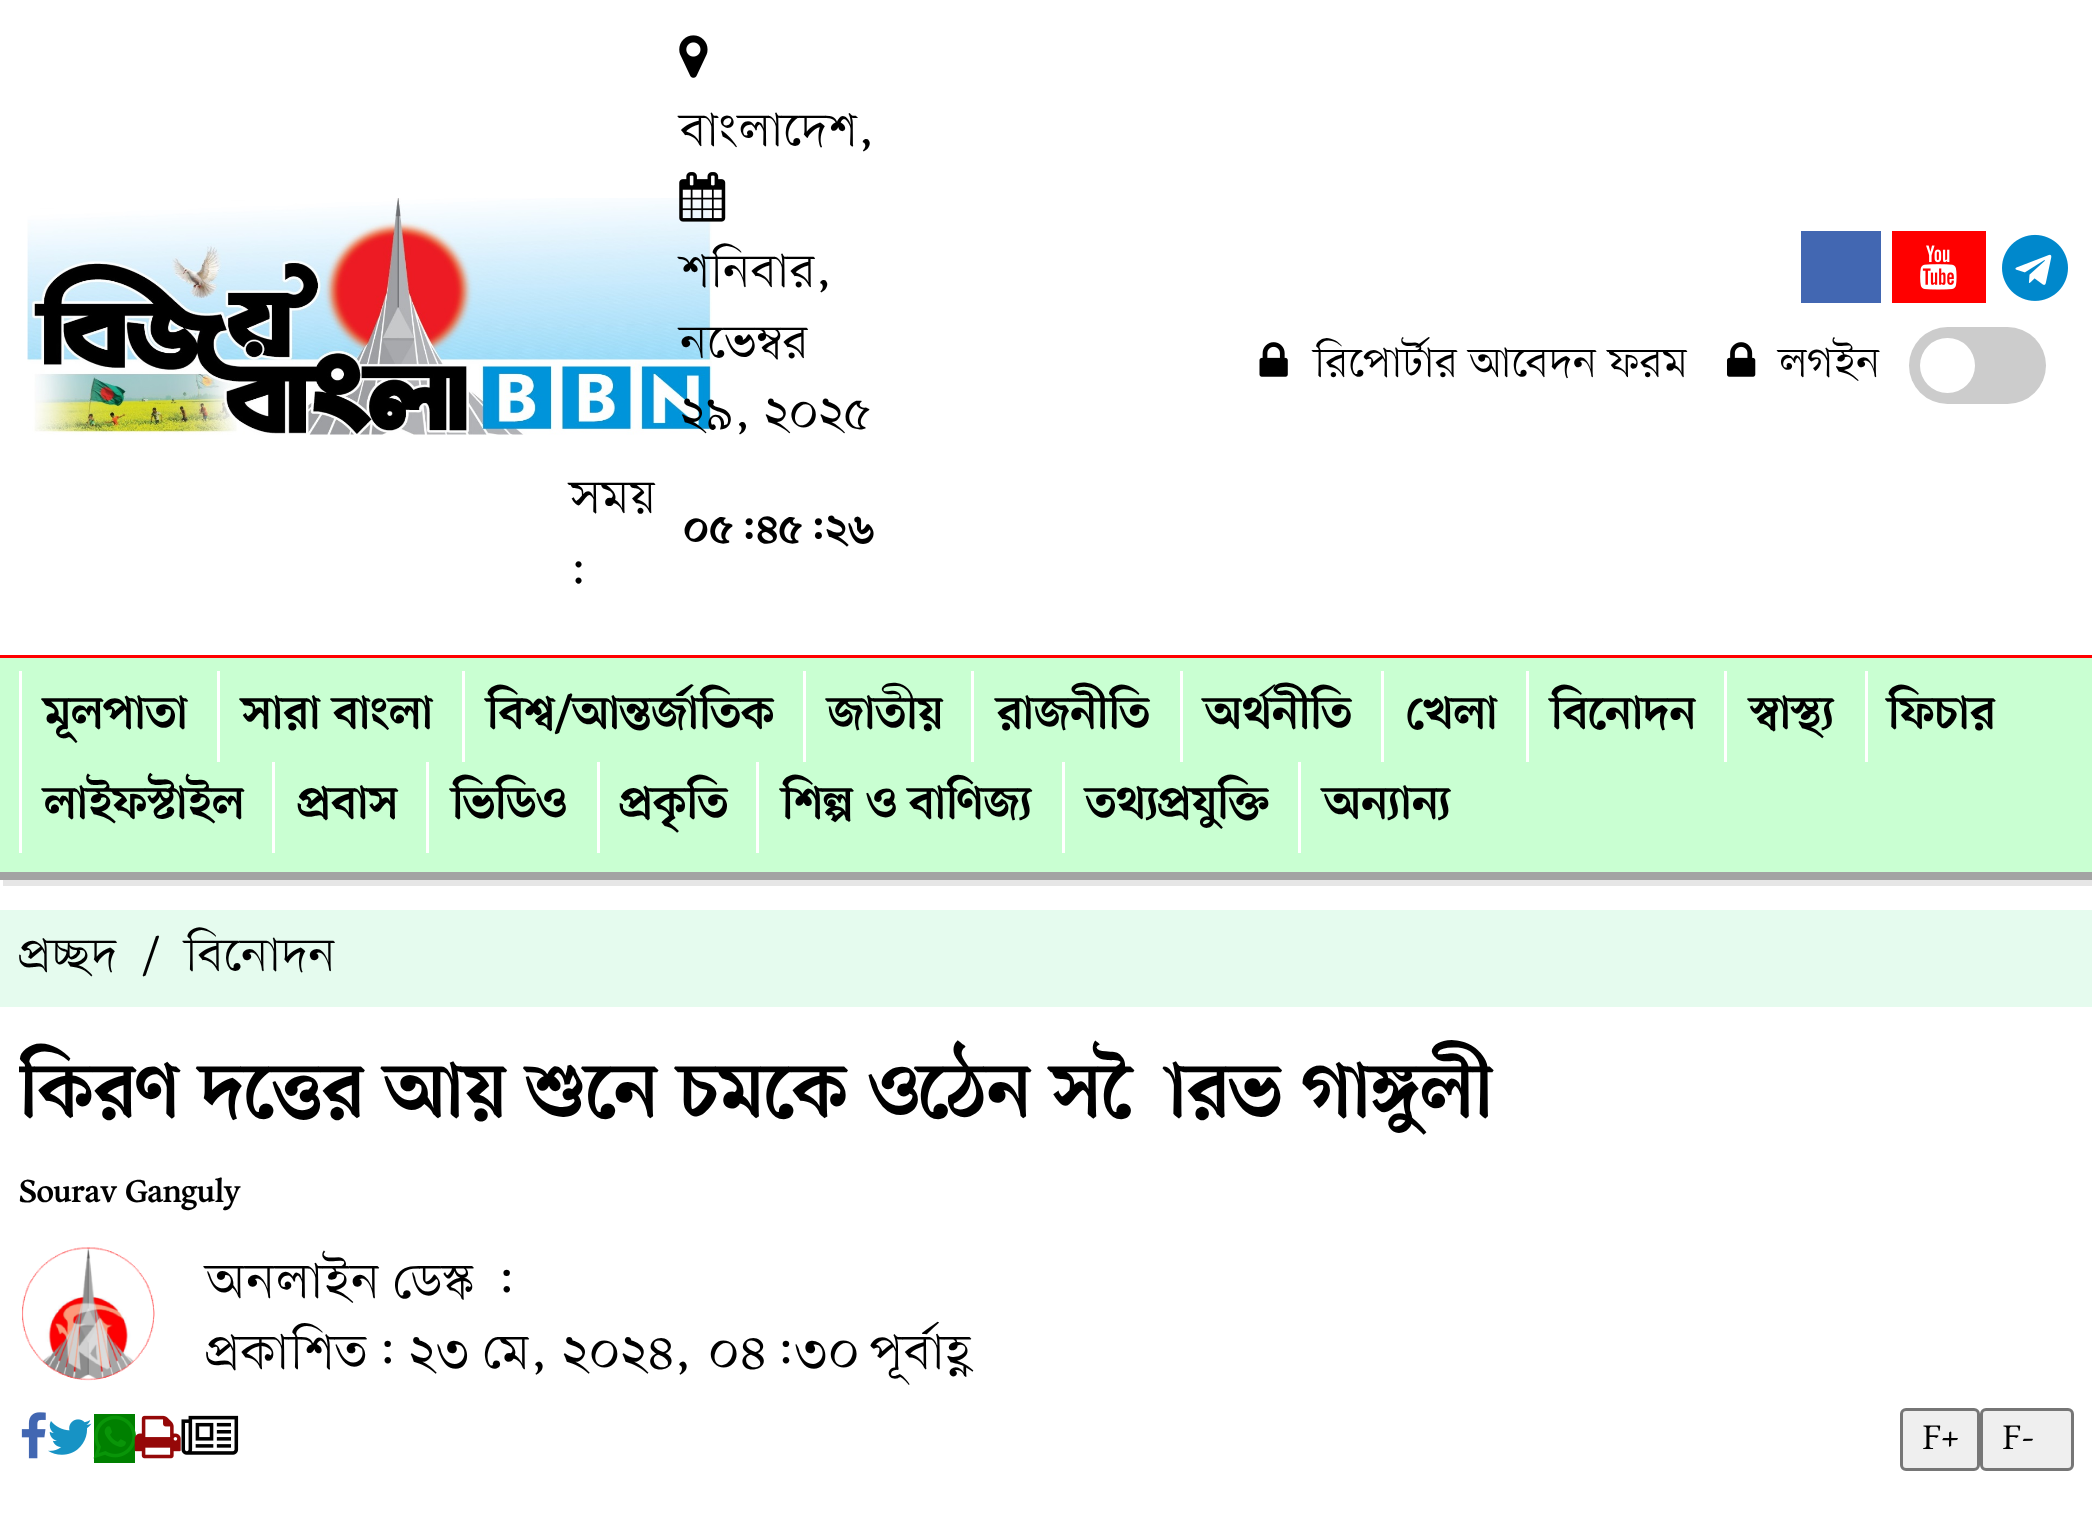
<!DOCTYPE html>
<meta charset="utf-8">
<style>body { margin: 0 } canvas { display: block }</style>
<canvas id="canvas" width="2092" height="1520"></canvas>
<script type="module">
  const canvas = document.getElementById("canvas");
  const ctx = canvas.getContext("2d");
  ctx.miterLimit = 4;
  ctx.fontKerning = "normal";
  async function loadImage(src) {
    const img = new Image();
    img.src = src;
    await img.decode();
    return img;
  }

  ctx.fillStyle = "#ffffff";
  ctx.fillRect(0, 0, 2092, 1520);
  ctx.drawImage(await loadImage("img1.png"), 27, 198, 685, 237);
  ctx.drawImage(await loadImage("img2.png"), 679, 35, 29, 43);
  ctx.font = "49.5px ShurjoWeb";
  ctx.fillStyle = "#000000";
  ctx.fillText("বাংলাদেশ,", 680, 145);
  ctx.drawImage(await loadImage("img3.png"), 679, 172, 47, 50);
  ctx.fillText("শনিবার,", 680, 286);
  ctx.fillText("নভেম্বর", 680, 357);
  ctx.fillText("২৯, ২০২৫", 680, 428);
  ctx.fillText("সময়", 570, 512);
  ctx.font = "bold 44px ShurjoWeb";
  ctx.fillText("০৫:৪৫:২৬", 683, 542);
  ctx.font = "49.5px ShurjoWeb";
  ctx.fillText(":", 570, 583);
  ctx.fillStyle = "#4267b2";
  ctx.fillRect(1801, 231, 80, 72);
  ctx.fillStyle = "#ff0000";
  ctx.fillRect(1892, 231, 94, 72);
  ctx.drawImage(await loadImage("img4.png"), 1920, 245, 37, 45);
  ctx.drawImage(await loadImage("img5.png"), 2002, 234, 66, 67);
  ctx.drawImage(await loadImage("img6.png"), 1259, 342, 29, 35);
  ctx.font = "44px ShurjoWeb";
  ctx.fillStyle = "#000000";
  ctx.fillText("রিপোর্টার আবেদন ফরম", 1314, 376);
  ctx.drawImage(await loadImage("img7.png"), 1727, 342, 29, 35);
  ctx.fillText("লগইন", 1779, 376);
  ctx.fillStyle = "#cccccc";
  ctx.beginPath();
  ctx.roundRect(1909, 327, 137, 77, 38.5);
  ctx.fill();
  ctx.fillStyle = "#ffffff";
  ctx.beginPath();
  ctx.arc(1947.5, 365.5, 27.5, 0, Math.PI * 2);
  ctx.fill();
  ctx.fillStyle = "#e6e6e6";
  ctx.beginPath();
  ctx.moveTo(3, 880);
  ctx.lineTo(3, 886);
  ctx.lineTo(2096, 886);
  ctx.lineTo(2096, 660);
  ctx.lineTo(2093, 660);
  ctx.lineTo(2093, 880);
  ctx.closePath();
  ctx.fill();
  ctx.fillStyle = "#c9ffd2";
  ctx.fillRect(0, 658, 2092, 214);
  ctx.fillStyle = "#ff0000";
  ctx.fillRect(0, 655, 2092, 3);
  ctx.fillStyle = "#a3a3a3";
  ctx.fillRect(0, 872, 2092, 8);
  ctx.fillStyle = "#ffffff";
  ctx.fillRect(19, 671, 3, 182);
  ctx.font = "bold 49.5px ShurjoWeb";
  ctx.fillStyle = "#000000";
  ctx.fillText("মূলপাতা", 44, 728);
  ctx.fillStyle = "#ffffff";
  ctx.fillRect(217, 671, 3, 91);
  ctx.fillStyle = "#000000";
  ctx.fillText("সারা বাংলা", 242, 728);
  ctx.fillStyle = "#ffffff";
  ctx.fillRect(462, 671, 3, 91);
  ctx.fillStyle = "#000000";
  ctx.fillText("বিশ্ব/আন্তর্জাতিক", 487, 728);
  ctx.fillStyle = "#ffffff";
  ctx.fillRect(803, 671, 3, 91);
  ctx.fillStyle = "#000000";
  ctx.fillText("জাতীয়", 828, 728);
  ctx.fillStyle = "#ffffff";
  ctx.fillRect(971, 671, 3, 91);
  ctx.fillStyle = "#000000";
  ctx.fillText("রাজনীতি", 997, 728);
  ctx.fillStyle = "#ffffff";
  ctx.fillRect(1180, 671, 3, 91);
  ctx.fillStyle = "#000000";
  ctx.fillText("অর্থনীতি", 1204, 728);
  ctx.fillStyle = "#ffffff";
  ctx.fillRect(1381, 671, 3, 91);
  ctx.fillStyle = "#000000";
  ctx.fillText("খেলা", 1406, 728);
  ctx.fillStyle = "#ffffff";
  ctx.fillRect(1526, 671, 3, 91);
  ctx.fillStyle = "#000000";
  ctx.fillText("বিনোদন", 1551, 728);
  ctx.fillStyle = "#ffffff";
  ctx.fillRect(1724, 671, 3, 91);
  ctx.fillStyle = "#000000";
  ctx.fillText("স্বাস্থ্য", 1750, 728);
  ctx.fillStyle = "#ffffff";
  ctx.fillRect(1865, 671, 3, 91);
  ctx.fillStyle = "#000000";
  ctx.fillText("ফিচার", 1888, 728);
  ctx.fillText("লাইফস্টাইল", 44, 818);
  ctx.fillStyle = "#ffffff";
  ctx.fillRect(272, 762, 3, 91);
  ctx.fillStyle = "#000000";
  ctx.fillText("প্রবাস", 298, 818);
  ctx.fillStyle = "#ffffff";
  ctx.fillRect(426, 762, 3, 91);
  ctx.fillStyle = "#000000";
  ctx.fillText("ভিডিও", 452, 818);
  ctx.fillStyle = "#ffffff";
  ctx.fillRect(597, 762, 3, 91);
  ctx.fillStyle = "#000000";
  ctx.fillText("প্রকৃতি", 620, 818);
  ctx.fillStyle = "#ffffff";
  ctx.fillRect(756, 762, 3, 91);
  ctx.fillStyle = "#000000";
  ctx.fillText("শিল্প ও বাণিজ্য", 782, 818);
  ctx.fillStyle = "#ffffff";
  ctx.fillRect(1062, 762, 3, 91);
  ctx.fillStyle = "#000000";
  ctx.fillText("তথ্যপ্রযুক্তি", 1086, 818);
  ctx.fillStyle = "#ffffff";
  ctx.fillRect(1298, 762, 3, 91);
  ctx.fillStyle = "#000000";
  ctx.fillText("অন্যান্য", 1323, 818);
  ctx.fillStyle = "#e5fbee";
  ctx.fillRect(0, 910, 2092, 97);
  ctx.font = "49.5px ShurjoWeb";
  ctx.fillStyle = "#000000";
  ctx.fillText("প্রচ্ছদ", 19, 970);
  ctx.fillText("/", 143, 970);
  ctx.fillText("বিনোদন", 185, 970);
  ctx.save();
  ctx.beginPath();
  ctx.rect(19, 1018, 2055, 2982);
  ctx.clip();
  ctx.font = "bold 82.5px ShurjoWeb";
  ctx.fillText("কিরণ দত্তের আয় শুনে চমকে ওঠেন সৌরভ গাঙ্গুলী", 19, 1116);
  ctx.restore();
  ctx.font = "bold 33.25px ShurjoWeb";
  ctx.fillText("Sourav Ganguly", 19, 1202);
  ctx.drawImage(await loadImage("img8.png"), 22, 1247, 133, 134);
  ctx.letterSpacing = "0.5px";
  ctx.wordSpacing = "-1px";
  ctx.font = "52.25px ShurjoWeb";
  ctx.fillText("অনলাইন ডেস্ক :", 206, 1297);
  ctx.wordSpacing = "-0.5px";
  ctx.fillText("প্রকাশিত: ২৩ মে, ২০২৪,", 206, 1368);
  ctx.wordSpacing = "-3px";
  ctx.fillText("০৪:৩০ পূর্বাহ্ণ", 708, 1368);
  ctx.drawImage(await loadImage("img9.png"), 21, 1412, 25, 47);
  ctx.drawImage(await loadImage("img10.png"), 48, 1419, 44, 36);
  ctx.fillStyle = "#008000";
  ctx.fillRect(94, 1414, 41, 49);
  ctx.drawImage(await loadImage("img11.png"), 93, 1415, 43, 44);
  ctx.drawImage(await loadImage("img12.png"), 134, 1415, 47, 44);
  ctx.drawImage(await loadImage("img13.png"), 181, 1415, 58, 40);
  ctx.fillStyle = "#efefef";
  ctx.beginPath();
  ctx.roundRect(1901.5, 1409.5, 77, 60, 4.5);
  ctx.fill();
  ctx.strokeStyle = "#767676";
  ctx.lineWidth = 3;
  ctx.stroke();
  ctx.letterSpacing = "0px";
  ctx.wordSpacing = "0px";
  ctx.font = "37px ShurjoWeb";
  ctx.fillStyle = "#000000";
  ctx.fillText("F+", 1923, 1449);
  ctx.fillStyle = "#efefef";
  ctx.beginPath();
  ctx.roundRect(1981.5, 1409.5, 91, 60, 4.5);
  ctx.fill();
  ctx.stroke();
  ctx.fillStyle = "#000000";
  ctx.fillText("F-", 2003, 1449);
</script>
